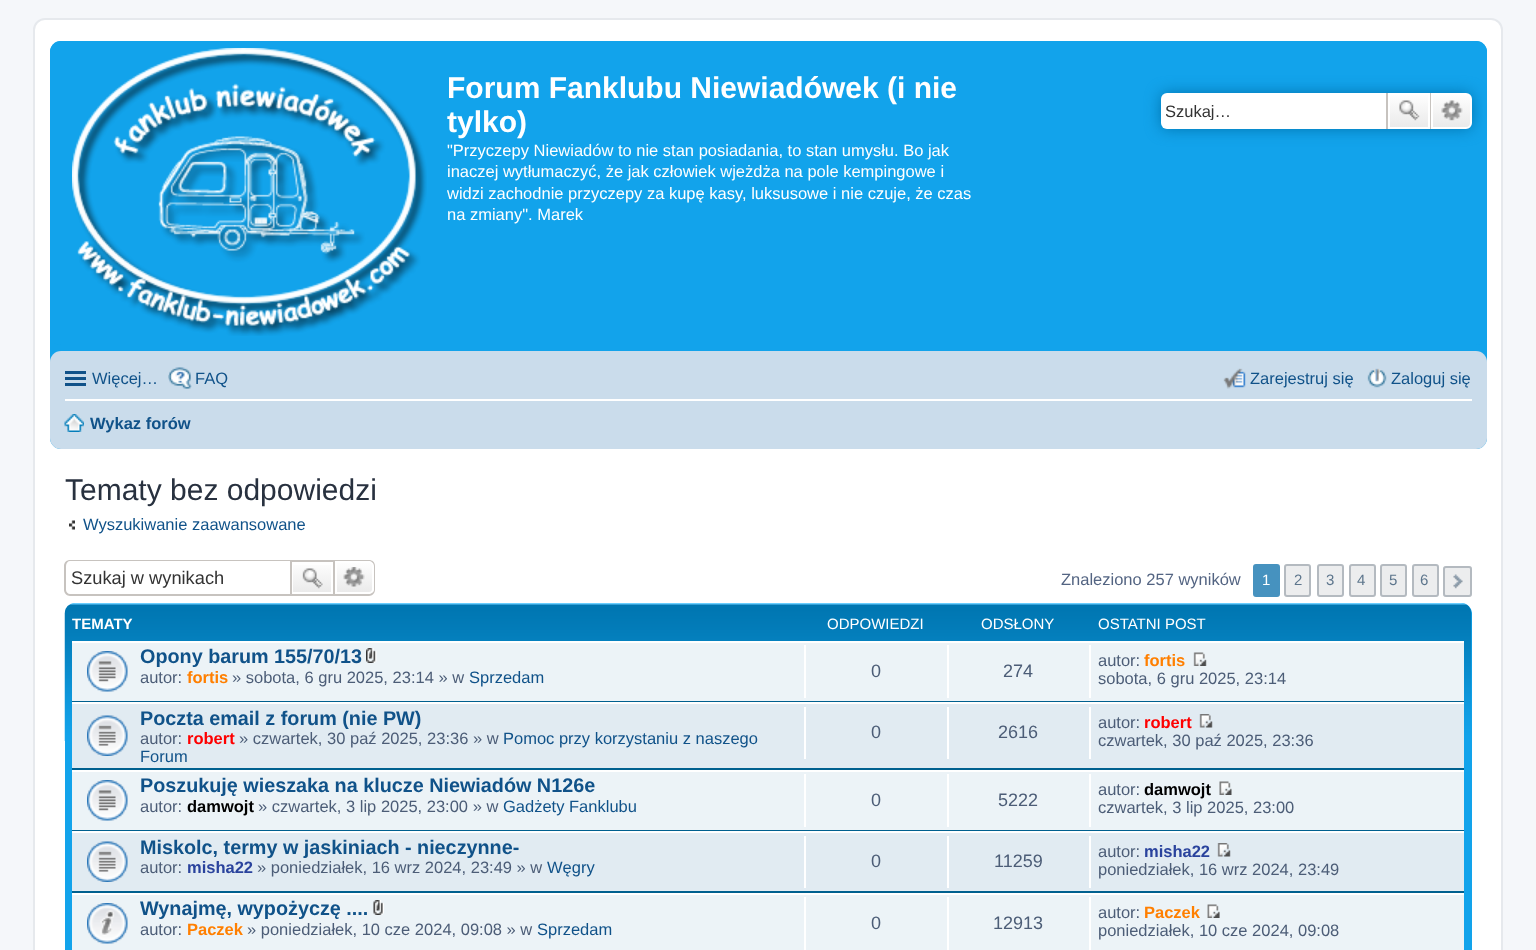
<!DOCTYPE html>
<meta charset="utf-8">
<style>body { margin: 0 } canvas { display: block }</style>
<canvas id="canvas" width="1536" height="950"></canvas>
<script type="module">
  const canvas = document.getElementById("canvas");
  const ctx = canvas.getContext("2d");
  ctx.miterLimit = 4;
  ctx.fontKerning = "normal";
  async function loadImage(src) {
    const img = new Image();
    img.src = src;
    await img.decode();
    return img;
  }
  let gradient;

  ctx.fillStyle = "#f5f7fa";
  ctx.fillRect(0, 0, 1536, 950);
  ctx.fillStyle = "#ffffff";
  ctx.beginPath();
  ctx.roundRect(34, 19, 1468, 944, 11);
  ctx.fill();
  ctx.strokeStyle = "#e6e9ed";
  ctx.lineWidth = 2;
  ctx.stroke();
  ctx.fillStyle = "#12a3eb";
  ctx.beginPath();
  ctx.roundRect(50, 41, 1437, 408, 11);
  ctx.fill();
  ctx.beginPath();
  ctx.roundRect(50, 41, 1437, 304, 11);
  ctx.fill();
  ctx.drawImage(await loadImage("img1.png"), 72, 48, 355, 288);
  ctx.font = "bold 30px Liberation Sans";
  ctx.fillStyle = "#ffffff";
  ctx.fillText("Forum Fanklubu Niewiadówek (i nie", 447, 98);
  ctx.fillText("tylko)", 447, 132);
  ctx.font = "16.5px Liberation Sans";
  ctx.fillText("\"Przyczepy Niewiadów to nie stan posiadania, to stan umysłu. Bo jak", 447, 156);
  ctx.fillText("inaczej wytłumaczyć, że jak człowiek wjeżdża na pole kempingowe i", 447, 177);
  ctx.fillText("widzi zachodnie przyczepy za kupę kasy, luksusowe i nie czuje, że czas", 447, 199);
  ctx.fillText("na zmiany\". Marek", 447, 220);
  ctx.fillStyle = "#0075b0";
  ctx.filter = "blur(7.5px)";
  ctx.beginPath();
  ctx.roundRect(1161, 93, 311, 36, 6);
  ctx.fill();
  ctx.filter = "none";
  ctx.fillStyle = "#ffffff";
  ctx.beginPath();
  ctx.roundRect(1161, 93, 225, 36, [6, 0, 0, 6]);
  ctx.fill();
  ctx.save();
  ctx.beginPath();
  ctx.rect(1166, 102, 198, 18);
  ctx.clip();
  ctx.fillStyle = "#333333";
  ctx.fillText("Szukaj…", 1165, 117);
  ctx.restore();
  gradient = ctx.createLinearGradient(1409, 93, 1409, 129);
  gradient.addColorStop(0, "#ffffff");
  gradient.addColorStop(1, "#e9e9e9");
  ctx.fillStyle = gradient;
  ctx.fillRect(1390, 95, 38, 32);
  ctx.strokeStyle = "#ffffff";
  ctx.strokeRect(1389, 94, 40, 34);
  ctx.fillStyle = "#c7c3bf";
  ctx.fillRect(1430, 93, 1, 36);
  ctx.fillRect(1386, 93, 2, 36);
  ctx.drawImage(await loadImage("img2.png"), 1399, 100, 21, 21);
  gradient = ctx.createLinearGradient(1451, 93, 1451, 129);
  gradient.addColorStop(0, "#ffffff");
  gradient.addColorStop(1, "#e9e9e9");
  ctx.fillStyle = gradient;
  ctx.beginPath();
  ctx.roundRect(1432, 94, 39, 34, [0, 5, 5, 0]);
  ctx.fill();
  ctx.stroke();
  ctx.drawImage(await loadImage("img3.png"), 1441, 100, 22, 21);
  ctx.fillStyle = "#cadceb";
  ctx.beginPath();
  ctx.roundRect(50, 351, 1437, 98, 11);
  ctx.fill();
  ctx.fillStyle = "#105289";
  ctx.fillRect(65, 371, 21, 3);
  ctx.fillRect(65, 377, 21, 3);
  ctx.fillRect(65, 383, 21, 3);
  ctx.fillText("Więcej…", 92, 384);
  ctx.drawImage(await loadImage("img4.png"), 168, 367, 24, 22);
  ctx.fillText("FAQ", 195, 384);
  ctx.drawImage(await loadImage("img5.png"), 1223, 368, 23, 21);
  ctx.fillText("Zarejestruj się", 1250, 384);
  ctx.drawImage(await loadImage("img6.png"), 1367, 368, 20, 20);
  ctx.fillText("Zaloguj się", 1391, 384);
  ctx.fillStyle = "#ffffff";
  ctx.fillRect(65, 399, 1407, 2);
  ctx.drawImage(await loadImage("img7.png"), 64, 414, 20, 18);
  ctx.font = "bold 16.5px Liberation Sans";
  ctx.fillStyle = "#105289";
  ctx.fillText("Wykaz forów", 90, 429);
  ctx.font = "30px Liberation Sans";
  ctx.fillStyle = "#28313f";
  ctx.fillText("Tematy bez odpowiedzi", 65, 500);
  ctx.drawImage(await loadImage("img8.png"), 69, 520, 6, 10);
  ctx.font = "16.5px Liberation Sans";
  ctx.fillStyle = "#105289";
  ctx.fillText("Wyszukiwanie zaawansowane", 83, 530);
  ctx.fillStyle = "#c7c3bf";
  ctx.beginPath();
  ctx.moveTo(70, 560);
  ctx.lineTo(290, 560);
  ctx.lineTo(290, 596);
  ctx.lineTo(70, 596);
  ctx.bezierCurveTo(67, 596, 64, 593, 64, 590);
  ctx.lineTo(64, 566);
  ctx.bezierCurveTo(64, 562, 67, 560, 70, 560);
  ctx.closePath();
  ctx.moveTo(70, 561);
  ctx.lineTo(290, 561);
  ctx.lineTo(290, 594);
  ctx.lineTo(70, 594);
  ctx.bezierCurveTo(68, 594, 66, 592, 66, 590);
  ctx.lineTo(66, 566);
  ctx.bezierCurveTo(66, 563, 68, 561, 70, 561);
  ctx.closePath();
  ctx.fill("evenodd");
  ctx.font = "18.25px Liberation Sans";
  ctx.fillStyle = "#333333";
  ctx.fillText("Szukaj w wynikach", 71, 584);
  gradient = ctx.createLinearGradient(312, 561, 312, 594);
  gradient.addColorStop(0, "#ffffff");
  gradient.addColorStop(1, "#e9e9e9");
  ctx.fillStyle = gradient;
  ctx.fillRect(293, 565, 38, 27);
  ctx.strokeStyle = "#c7c3bf";
  ctx.strokeRect(291, 561, 43, 34);
  ctx.drawImage(await loadImage("img9.png"), 302, 568, 21, 21);
  gradient = ctx.createLinearGradient(354, 561, 354, 594);
  gradient.addColorStop(0, "#ffffff");
  gradient.addColorStop(1, "#e9e9e9");
  ctx.fillStyle = gradient;
  ctx.beginPath();
  ctx.roundRect(336, 562, 37, 31, [0, 4, 4, 0]);
  ctx.fill();
  ctx.strokeStyle = "#ffffff";
  ctx.stroke();
  ctx.fillStyle = "#c7c3bf";
  ctx.beginPath();
  ctx.moveTo(334, 560);
  ctx.lineTo(369, 560);
  ctx.bezierCurveTo(372, 560, 375, 562, 375, 566);
  ctx.lineTo(375, 590);
  ctx.bezierCurveTo(375, 593, 372, 596, 369, 596);
  ctx.lineTo(334, 596);
  ctx.closePath();
  ctx.moveTo(334, 561);
  ctx.lineTo(369, 561);
  ctx.bezierCurveTo(371, 561, 374, 563, 374, 566);
  ctx.lineTo(374, 590);
  ctx.bezierCurveTo(374, 592, 371, 594, 369, 594);
  ctx.lineTo(334, 594);
  ctx.closePath();
  ctx.fill("evenodd");
  ctx.drawImage(await loadImage("img10.png"), 343, 567, 22, 20);
  ctx.font = "16.5px Liberation Sans";
  ctx.fillStyle = "#536482";
  ctx.fillText("Znaleziono 257 wyników", 1061, 585);
  ctx.fillStyle = "#4692bf";
  ctx.beginPath();
  ctx.roundRect(1254, 565, 25, 31, 2);
  ctx.fill();
  ctx.strokeStyle = "#4692bf";
  ctx.stroke();
  ctx.font = "15px Liberation Sans";
  ctx.fillStyle = "#ffffff";
  ctx.fillText("1", 1262, 585);
  ctx.fillStyle = "#ecedee";
  ctx.beginPath();
  ctx.roundRect(1285, 565, 25, 31, 2);
  ctx.fill();
  ctx.strokeStyle = "#b4bac0";
  ctx.stroke();
  ctx.fillStyle = "#5c758c";
  ctx.fillText("2", 1294, 585);
  ctx.fillStyle = "#ecedee";
  ctx.beginPath();
  ctx.roundRect(1318, 565, 25, 31, 2);
  ctx.fill();
  ctx.stroke();
  ctx.fillStyle = "#5c758c";
  ctx.fillText("3", 1326, 585);
  ctx.fillStyle = "#ecedee";
  ctx.beginPath();
  ctx.roundRect(1350, 565, 25, 31, 2);
  ctx.fill();
  ctx.stroke();
  ctx.fillStyle = "#5c758c";
  ctx.fillText("4", 1357, 585);
  ctx.fillStyle = "#ecedee";
  ctx.beginPath();
  ctx.roundRect(1381, 565, 25, 31, 2);
  ctx.fill();
  ctx.stroke();
  ctx.fillStyle = "#5c758c";
  ctx.fillText("5", 1389, 585);
  ctx.fillStyle = "#ecedee";
  ctx.beginPath();
  ctx.roundRect(1413, 565, 25, 31, 2);
  ctx.fill();
  ctx.stroke();
  ctx.fillStyle = "#5c758c";
  ctx.fillText("6", 1420, 585);
  ctx.fillStyle = "#ecedee";
  ctx.beginPath();
  ctx.roundRect(1443, 566, 29, 31, 3);
  ctx.fill();
  ctx.drawImage(await loadImage("img11.png"), 1453, 574, 10, 15);
  ctx.beginPath();
  ctx.roundRect(1444, 567, 27, 29, 2);
  ctx.stroke();
  ctx.fillStyle = "#12a3eb";
  ctx.beginPath();
  ctx.roundRect(65, 603, 1407, 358, 11);
  ctx.fill();
  ctx.drawImage(await loadImage("img12.png"), 64, 603, 1408, 138);
  ctx.font = "bold 15px Liberation Sans";
  ctx.fillStyle = "#ffffff";
  ctx.fillText("TEMATY", 72, 629);
  ctx.font = "15px Liberation Sans";
  ctx.fillText("ODPOWIEDZI", 827, 629);
  ctx.fillText("ODSŁONY", 981, 629);
  ctx.fillText("OSTATNI POST", 1098, 629);
  ctx.fillStyle = "#ecf3f7";
  ctx.fillRect(72, 643, 1392, 58);
  ctx.fillStyle = "#ffffff";
  ctx.fillRect(72, 641, 1392, 2);
  ctx.fillStyle = "#00608f";
  ctx.fillRect(72, 701, 1392, 1);
  ctx.drawImage(await loadImage("img13.png"), 87, 651, 41, 41);
  ctx.font = "bold 19.8px Liberation Sans";
  ctx.fillStyle = "#105289";
  ctx.fillText("Opony barum 155/70/13", 140, 663);
  ctx.drawImage(await loadImage("img14.png"), 366, 648, 11, 15);
  ctx.font = "16.5px Liberation Sans";
  ctx.fillStyle = "#4c5d77";
  ctx.fillText("autor:", 140, 683);
  ctx.font = "bold 16.5px Liberation Sans";
  ctx.fillStyle = "#ff7f00";
  ctx.fillText("fortis", 187, 683);
  ctx.font = "16.5px Liberation Sans";
  ctx.fillStyle = "#4c5d77";
  ctx.fillText("» sobota, 6 gru 2025, 23:14 » w", 232, 683);
  ctx.fillStyle = "#105289";
  ctx.fillText("Sprzedam", 469, 683);
  ctx.fillStyle = "#ffffff";
  ctx.fillRect(804, 645, 2, 53);
  ctx.font = "18px Liberation Sans";
  ctx.fillStyle = "#4c5d77";
  ctx.fillText("0", 871, 677);
  ctx.fillStyle = "#ffffff";
  ctx.fillRect(947, 645, 2, 53);
  ctx.fillStyle = "#4c5d77";
  ctx.fillText("274", 1003, 677);
  ctx.fillStyle = "#ffffff";
  ctx.fillRect(1089, 645, 2, 53);
  ctx.font = "16.5px Liberation Sans";
  ctx.fillStyle = "#4c5d77";
  ctx.fillText("autor:", 1098, 666);
  ctx.font = "bold 16.5px Liberation Sans";
  ctx.fillStyle = "#ff7f00";
  ctx.fillText("fortis", 1144, 666);
  ctx.drawImage(await loadImage("img15.png"), 1193, 652, 14, 14);
  ctx.font = "16.5px Liberation Sans";
  ctx.fillStyle = "#4c5d77";
  ctx.fillText("sobota, 6 gru 2025, 23:14", 1098, 684);
  ctx.fillStyle = "#e1ebf2";
  ctx.fillRect(72, 704, 1392, 64);
  ctx.fillStyle = "#ffffff";
  ctx.fillRect(72, 702, 1392, 2);
  ctx.fillStyle = "#00608f";
  ctx.fillRect(72, 768, 1392, 2);
  ctx.drawImage(await loadImage("img16.png"), 87, 715, 41, 41);
  ctx.font = "bold 19.8px Liberation Sans";
  ctx.fillStyle = "#105289";
  ctx.fillText("Poczta email z forum (nie PW)", 140, 725);
  ctx.font = "16.5px Liberation Sans";
  ctx.fillStyle = "#4c5d77";
  ctx.fillText("autor:", 140, 744);
  ctx.font = "bold 16.5px Liberation Sans";
  ctx.fillStyle = "#fe0000";
  ctx.fillText("robert", 187, 744);
  ctx.font = "16.5px Liberation Sans";
  ctx.fillStyle = "#4c5d77";
  ctx.fillText("» czwartek, 30 paź 2025, 23:36 » w", 239, 744);
  ctx.fillStyle = "#105289";
  ctx.fillText("Pomoc przy korzystaniu z naszego", 503, 744);
  ctx.fillText("Forum", 140, 762);
  ctx.fillStyle = "#ffffff";
  ctx.fillRect(804, 707, 2, 52);
  ctx.font = "18px Liberation Sans";
  ctx.fillStyle = "#4c5d77";
  ctx.fillText("0", 871, 738);
  ctx.fillStyle = "#ffffff";
  ctx.fillRect(947, 707, 2, 52);
  ctx.fillStyle = "#4c5d77";
  ctx.fillText("2616", 998, 738);
  ctx.fillStyle = "#ffffff";
  ctx.fillRect(1089, 707, 2, 52);
  ctx.font = "16.5px Liberation Sans";
  ctx.fillStyle = "#4c5d77";
  ctx.fillText("autor:", 1098, 728);
  ctx.font = "bold 16.5px Liberation Sans";
  ctx.fillStyle = "#fe0000";
  ctx.fillText("robert", 1144, 728);
  ctx.drawImage(await loadImage("img17.png"), 1199, 714, 14, 14);
  ctx.font = "16.5px Liberation Sans";
  ctx.fillStyle = "#4c5d77";
  ctx.fillText("czwartek, 30 paź 2025, 23:36", 1098, 746);
  ctx.fillStyle = "#ecf3f7";
  ctx.fillRect(72, 772, 1392, 58);
  ctx.fillStyle = "#ffffff";
  ctx.fillRect(72, 770, 1392, 2);
  ctx.fillStyle = "#00608f";
  ctx.fillRect(72, 830, 1392, 1);
  ctx.drawImage(await loadImage("img13.png"), 87, 780, 41, 41);
  ctx.font = "bold 19.8px Liberation Sans";
  ctx.fillStyle = "#105289";
  ctx.fillText("Poszukuję wieszaka na klucze Niewiadów N126e", 140, 792);
  ctx.font = "16.5px Liberation Sans";
  ctx.fillStyle = "#4c5d77";
  ctx.fillText("autor:", 140, 812);
  ctx.font = "bold 16.5px Liberation Sans";
  ctx.fillStyle = "#000000";
  ctx.fillText("damwojt", 187, 812);
  ctx.font = "16.5px Liberation Sans";
  ctx.fillStyle = "#4c5d77";
  ctx.fillText("» czwartek, 3 lip 2025, 23:00 » w", 258, 812);
  ctx.fillStyle = "#105289";
  ctx.fillText("Gadżety Fanklubu", 503, 812);
  ctx.fillStyle = "#ffffff";
  ctx.fillRect(804, 774, 2, 53);
  ctx.font = "18px Liberation Sans";
  ctx.fillStyle = "#4c5d77";
  ctx.fillText("0", 871, 806);
  ctx.fillStyle = "#ffffff";
  ctx.fillRect(947, 774, 2, 53);
  ctx.fillStyle = "#4c5d77";
  ctx.fillText("5222", 998, 806);
  ctx.fillStyle = "#ffffff";
  ctx.fillRect(1089, 774, 2, 53);
  ctx.font = "16.5px Liberation Sans";
  ctx.fillStyle = "#4c5d77";
  ctx.fillText("autor:", 1098, 795);
  ctx.font = "bold 16.5px Liberation Sans";
  ctx.fillStyle = "#000000";
  ctx.fillText("damwojt", 1144, 795);
  ctx.drawImage(await loadImage("img18.png"), 1219, 781, 13, 14);
  ctx.font = "16.5px Liberation Sans";
  ctx.fillStyle = "#4c5d77";
  ctx.fillText("czwartek, 3 lip 2025, 23:00", 1098, 813);
  ctx.fillStyle = "#e1ebf2";
  ctx.fillRect(72, 833, 1392, 58);
  ctx.fillStyle = "#ffffff";
  ctx.fillRect(72, 831, 1392, 2);
  ctx.fillStyle = "#00608f";
  ctx.fillRect(72, 891, 1392, 2);
  ctx.drawImage(await loadImage("img16.png"), 87, 841, 41, 41);
  ctx.font = "bold 19.8px Liberation Sans";
  ctx.fillStyle = "#105289";
  ctx.fillText("Miskolc, termy w jaskiniach - nieczynne-", 140, 854);
  ctx.font = "16.5px Liberation Sans";
  ctx.fillStyle = "#4c5d77";
  ctx.fillText("autor:", 140, 873);
  ctx.font = "bold 16.5px Liberation Sans";
  ctx.fillStyle = "#2a439d";
  ctx.fillText("misha22", 187, 873);
  ctx.font = "16.5px Liberation Sans";
  ctx.fillStyle = "#4c5d77";
  ctx.fillText("» poniedziałek, 16 wrz 2024, 23:49 » w", 257, 873);
  ctx.fillStyle = "#105289";
  ctx.fillText("Węgry", 547, 873);
  ctx.fillStyle = "#ffffff";
  ctx.fillRect(804, 836, 2, 52);
  ctx.font = "18px Liberation Sans";
  ctx.fillStyle = "#4c5d77";
  ctx.fillText("0", 871, 867);
  ctx.fillStyle = "#ffffff";
  ctx.fillRect(947, 836, 2, 52);
  ctx.fillStyle = "#4c5d77";
  ctx.fillText("11259", 994, 867);
  ctx.fillStyle = "#ffffff";
  ctx.fillRect(1089, 836, 2, 52);
  ctx.font = "16.5px Liberation Sans";
  ctx.fillStyle = "#4c5d77";
  ctx.fillText("autor:", 1098, 857);
  ctx.font = "bold 16.5px Liberation Sans";
  ctx.fillStyle = "#2a439d";
  ctx.fillText("misha22", 1144, 857);
  ctx.drawImage(await loadImage("img17.png"), 1217, 843, 14, 14);
  ctx.font = "16.5px Liberation Sans";
  ctx.fillStyle = "#4c5d77";
  ctx.fillText("poniedziałek, 16 wrz 2024, 23:49", 1098, 875);
  ctx.fillStyle = "#ecf3f7";
  ctx.fillRect(72, 895, 1392, 55);
  ctx.fillStyle = "#ffffff";
  ctx.fillRect(72, 893, 1392, 2);
  ctx.drawImage(await loadImage("img19.png"), 87, 903, 41, 41);
  ctx.font = "bold 19.8px Liberation Sans";
  ctx.fillStyle = "#105289";
  ctx.fillText("Wynajmę, wypożyczę ....", 140, 915);
  ctx.drawImage(await loadImage("img20.png"), 373, 900, 11, 15);
  ctx.font = "16.5px Liberation Sans";
  ctx.fillStyle = "#4c5d77";
  ctx.fillText("autor:", 140, 935);
  ctx.font = "bold 16.5px Liberation Sans";
  ctx.fillStyle = "#ff7f00";
  ctx.fillText("Paczek", 187, 935);
  ctx.font = "16.5px Liberation Sans";
  ctx.fillStyle = "#4c5d77";
  ctx.fillText("» poniedziałek, 10 cze 2024, 09:08 » w", 247, 935);
  ctx.fillStyle = "#105289";
  ctx.fillText("Sprzedam", 537, 935);
  ctx.fillStyle = "#ffffff";
  ctx.fillRect(804, 897, 2, 53);
  ctx.font = "18px Liberation Sans";
  ctx.fillStyle = "#4c5d77";
  ctx.fillText("0", 871, 929);
  ctx.fillStyle = "#ffffff";
  ctx.fillRect(947, 897, 2, 53);
  ctx.fillStyle = "#4c5d77";
  ctx.fillText("12913", 993, 929);
  ctx.fillStyle = "#ffffff";
  ctx.fillRect(1089, 897, 2, 53);
  ctx.font = "16.5px Liberation Sans";
  ctx.fillStyle = "#4c5d77";
  ctx.fillText("autor:", 1098, 918);
  ctx.font = "bold 16.5px Liberation Sans";
  ctx.fillStyle = "#ff7f00";
  ctx.fillText("Paczek", 1144, 918);
  ctx.drawImage(await loadImage("img21.png"), 1207, 904, 13, 14);
  ctx.font = "16.5px Liberation Sans";
  ctx.fillStyle = "#4c5d77";
  ctx.fillText("poniedziałek, 10 cze 2024, 09:08", 1098, 936);
</script>
